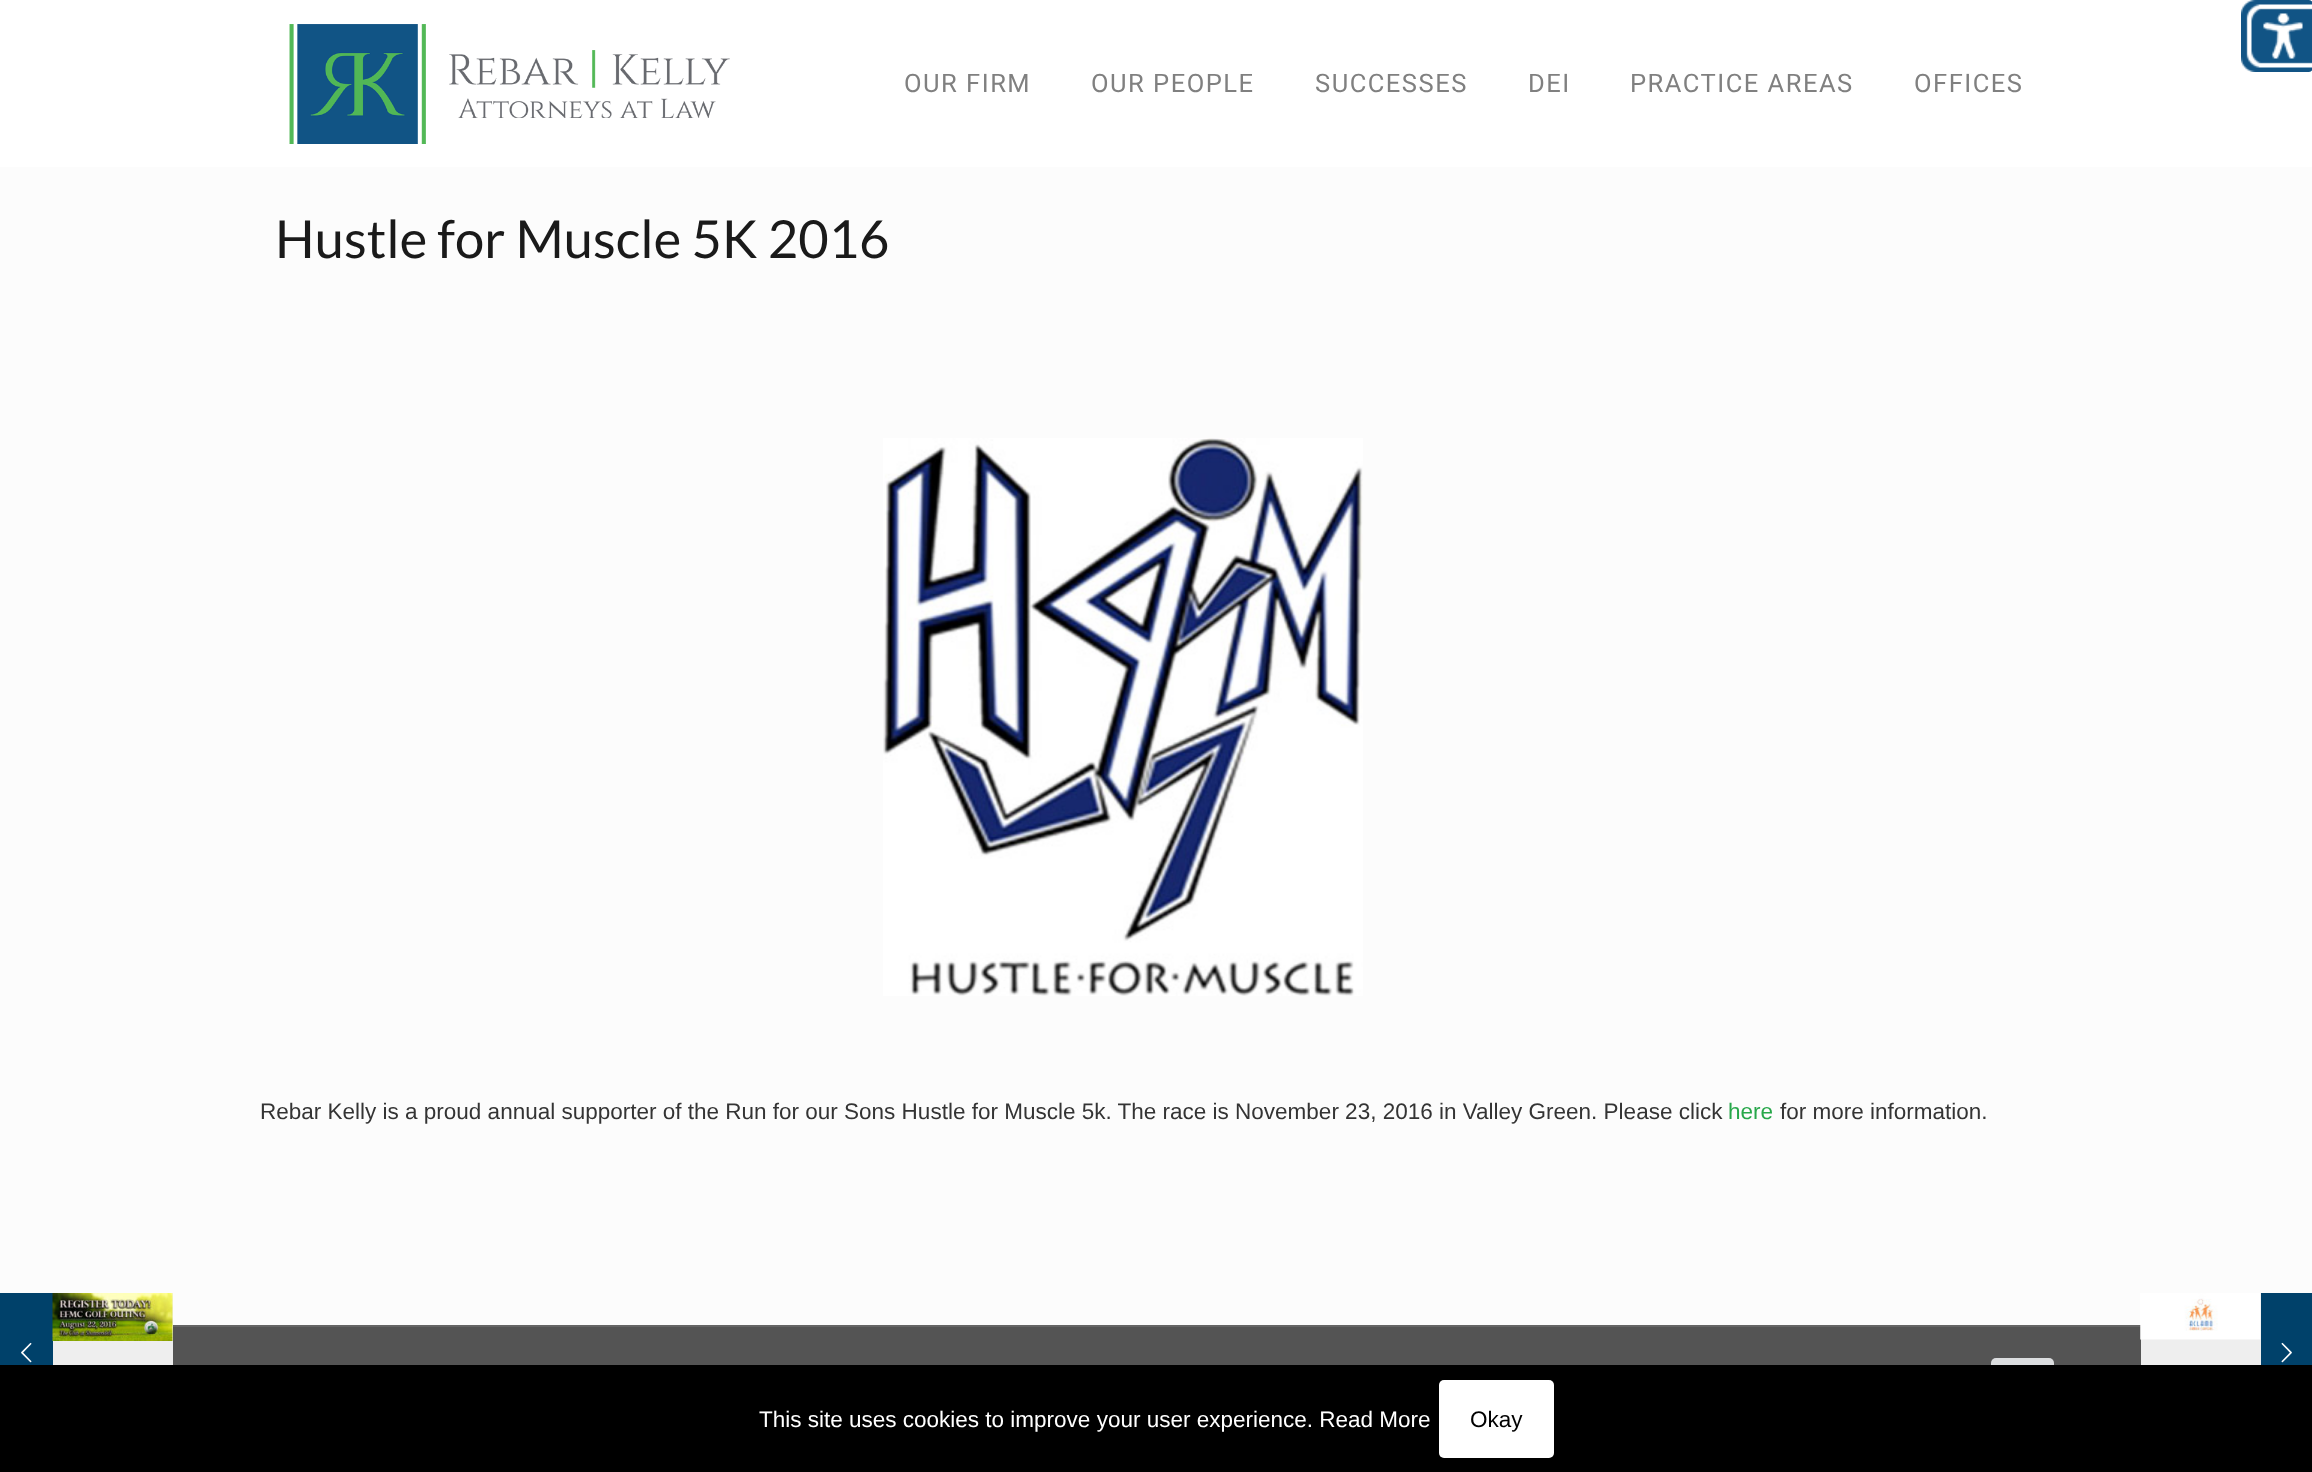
<!DOCTYPE html>
<meta charset="utf-8">
<style>body { margin: 0 } canvas { display: block }</style>
<canvas id="canvas" width="2312" height="1472"></canvas>
<script type="module">
  const canvas = document.getElementById("canvas");
  const ctx = canvas.getContext("2d");
  ctx.miterLimit = 4;
  ctx.fontKerning = "normal";
  async function loadImage(src) {
    const img = new Image();
    img.src = src;
    await img.decode();
    return img;
  }

  ctx.fillStyle = "#fcfcfc";
  ctx.fillRect(0, 0, 2312, 1472);
  ctx.fillStyle = "#ffffff";
  ctx.fillRect(0, 0, 2312, 167);
  ctx.drawImage(await loadImage("img1.png"), 2241, 0, 71, 72);
  ctx.drawImage(await loadImage("img2.png"), 289, 24, 441, 120);
  ctx.letterSpacing = "1.5px";
  ctx.font = "25.5px Roboto";
  ctx.fillStyle = "#808080";
  ctx.fillText("OUR FIRM", 904, 92);
  ctx.fillText("OUR PEOPLE", 1091, 92);
  ctx.fillText("SUCCESSES", 1315, 92);
  ctx.fillText("DEI", 1528, 92);
  ctx.fillText("PRACTICE AREAS", 1630, 92);
  ctx.fillText("OFFICES", 1914, 92);
  ctx.letterSpacing = "0px";
  ctx.font = "52.5px Lato";
  ctx.fillStyle = "#1a1a1a";
  ctx.fillText("Hustle for Muscle 5K 2016", 275, 258);
  ctx.drawImage(await loadImage("img3.png"), 883, 438, 480, 558);
  ctx.font = "22.5px Liberation Sans";
  ctx.fillStyle = "#343434";
  ctx.fillText("Rebar Kelly is a proud annual supporter of the Run for our Sons Hustle for Muscle 5k. The race is November 23, 2016 in Valley Green. Please click", 260, 1119);
  ctx.fillStyle = "#27a74a";
  ctx.fillText("here", 1728, 1119);
  ctx.fillStyle = "#343434";
  ctx.fillText("for more information.", 1780, 1119);
  ctx.fillStyle = "#545454";
  ctx.fillRect(173, 1327, 1968, 38);
  ctx.fillStyle = "#656565";
  ctx.fillRect(173, 1325, 1968, 2);
  ctx.fillStyle = "#dbdddf";
  ctx.beginPath();
  ctx.roundRect(1991, 1358, 63, 63, 5);
  ctx.fill();
  ctx.fillStyle = "#00416a";
  ctx.fillRect(0, 1293, 53, 72);
  ctx.drawImage(await loadImage("img4.png"), 21, 1342, 11, 21);
  ctx.fillStyle = "#eeeeee";
  ctx.fillRect(53, 1293, 120, 72);
  ctx.drawImage(await loadImage("img5.png"), 52, 1293, 121, 48);
  ctx.drawImage(await loadImage("img6.png"), 2140, 1293, 1, 47);
  ctx.fillRect(2141, 1293, 120, 72);
  ctx.drawImage(await loadImage("img7.png"), 2140, 1293, 121, 47);
  ctx.fillStyle = "#00416a";
  ctx.fillRect(2261, 1293, 51, 72);
  ctx.drawImage(await loadImage("img8.png"), 2281, 1342, 11, 21);
  ctx.fillStyle = "#000000";
  ctx.fillRect(0, 1365, 2312, 107);
  ctx.fillStyle = "#ffffff";
  ctx.fillText("This site uses cookies to improve your user experience. Read More", 759, 1427);
  ctx.beginPath();
  ctx.roundRect(1439, 1380, 115, 78, 5);
  ctx.fill();
  ctx.fillStyle = "#000000";
  ctx.fillText("Okay", 1470, 1427);
</script>
